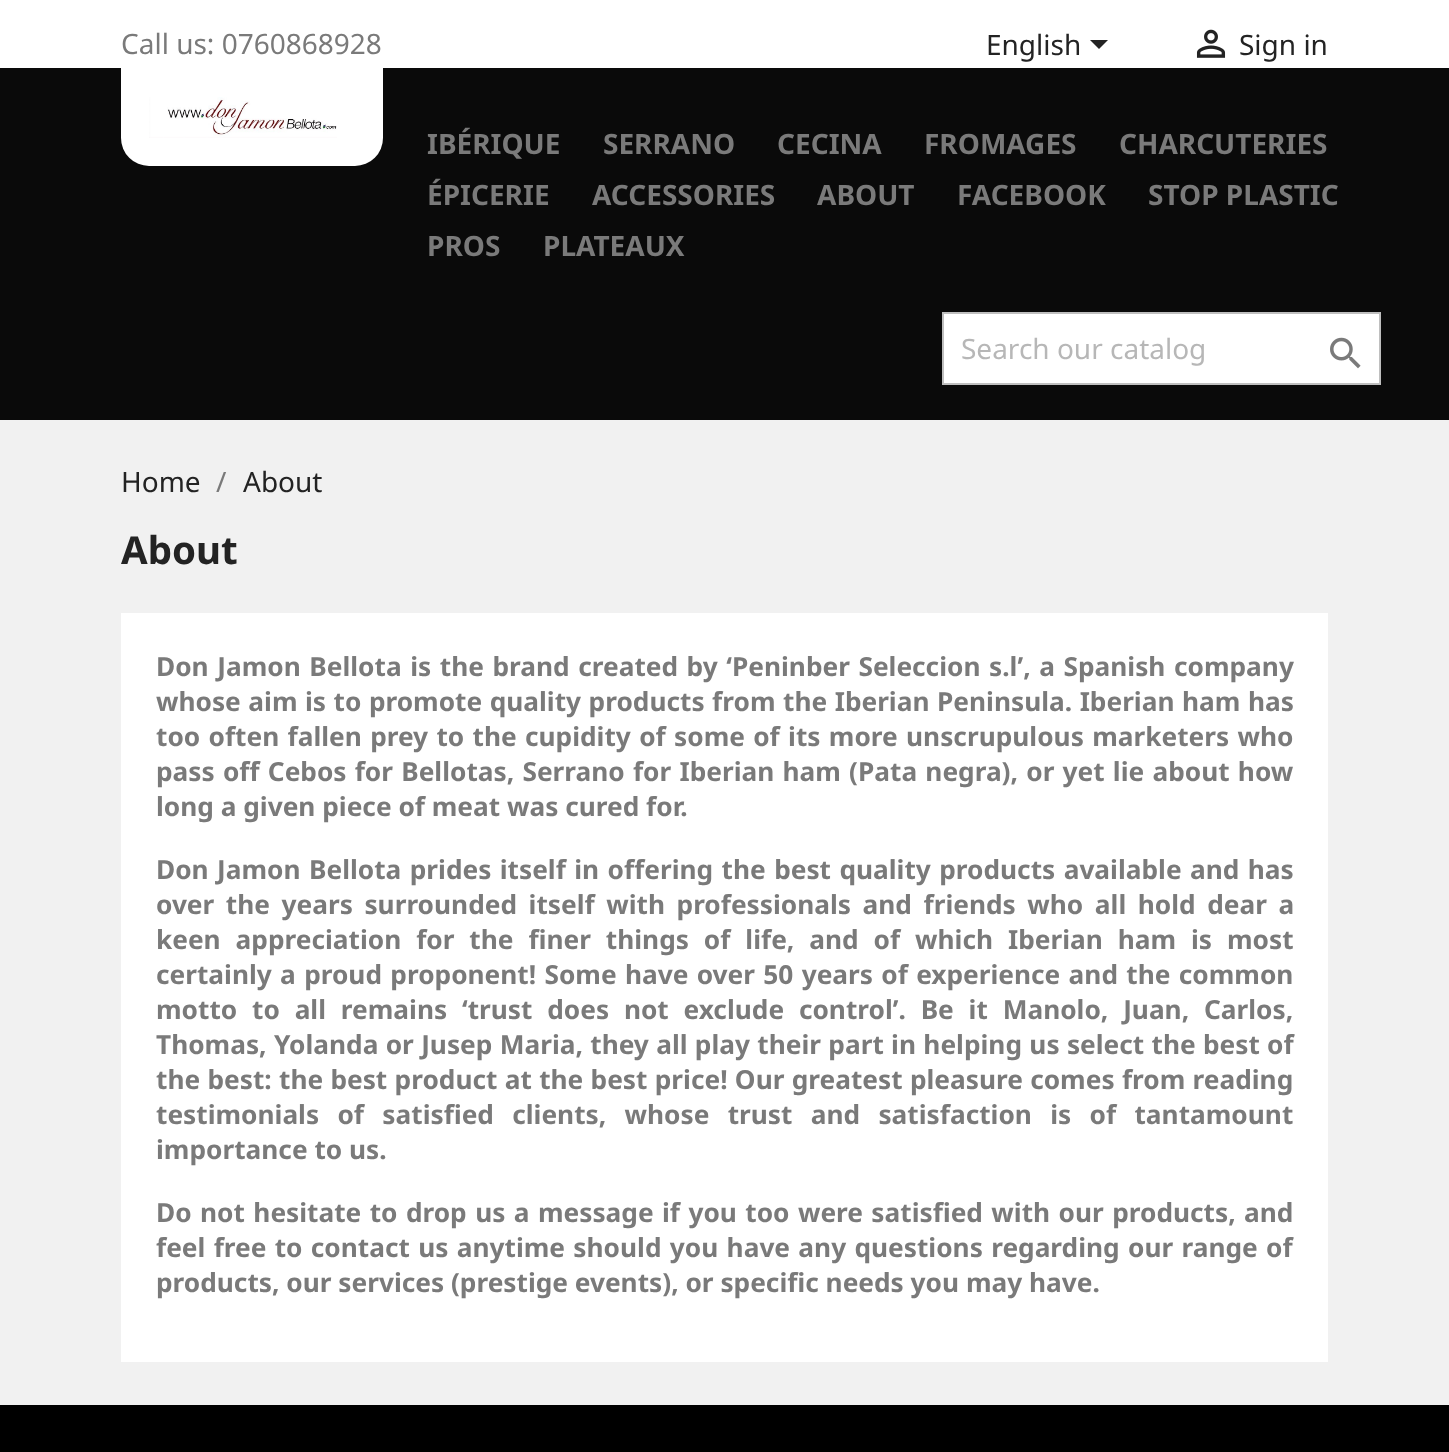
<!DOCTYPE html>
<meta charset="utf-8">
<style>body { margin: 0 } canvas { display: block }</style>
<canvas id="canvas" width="1449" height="1452"></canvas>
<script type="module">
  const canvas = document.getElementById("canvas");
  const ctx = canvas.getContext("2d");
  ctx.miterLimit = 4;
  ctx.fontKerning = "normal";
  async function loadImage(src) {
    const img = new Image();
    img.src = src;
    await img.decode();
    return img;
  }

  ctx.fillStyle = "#ffffff";
  ctx.fillRect(0, 0, 1449, 1452);
  ctx.font = "28px Noto Sans";
  ctx.fillStyle = "#7a7a7a";
  ctx.fillText("Call us: 0760868928", 121, 54);
  ctx.fillStyle = "#232323";
  ctx.fillText("English", 986, 55);
  ctx.beginPath();
  ctx.moveTo(1090, 40);
  ctx.lineTo(1108, 40);
  ctx.lineTo(1099, 49);
  ctx.closePath();
  ctx.fill();
  ctx.drawImage(await loadImage("img1.png"), 1196, 29, 30, 29);
  ctx.fillText("Sign in", 1239, 55);
  ctx.fillStyle = "#0a0a0a";
  ctx.fillRect(0, 68, 1449, 352);
  ctx.fillStyle = "#ffffff";
  ctx.beginPath();
  ctx.roundRect(121, 68, 262, 98, [0, 0, 28, 28]);
  ctx.fill();
  ctx.drawImage(await loadImage("img2.png"), 149, 97, 188, 41);
  ctx.font = "bold 28px Noto Sans";
  ctx.fillStyle = "#7a7a7a";
  ctx.fillText("IBÉRIQUE", 427, 154);
  ctx.fillText("SERRANO", 603, 154);
  ctx.fillText("CECINA", 777, 154);
  ctx.fillText("FROMAGES", 924, 154);
  ctx.fillText("CHARCUTERIES", 1119, 154);
  ctx.fillText("ÉPICERIE", 427, 205);
  ctx.fillText("ACCESSORIES", 592, 205);
  ctx.fillText("ABOUT", 817, 205);
  ctx.fillText("FACEBOOK", 957, 205);
  ctx.fillText("STOP PLASTIC", 1148, 205);
  ctx.fillText("PROS", 427, 256);
  ctx.fillText("PLATEAUX", 543, 256);
  ctx.fillStyle = "#ffffff";
  ctx.beginPath();
  ctx.rect(943, 313, 437, 71);
  ctx.fill();
  ctx.strokeStyle = "#bfbfbf";
  ctx.lineWidth = 2;
  ctx.stroke();
  ctx.font = "28px Noto Sans";
  ctx.fillStyle = "#b7b7b7";
  ctx.fillText("Search our catalog", 961, 359);
  ctx.drawImage(await loadImage("img3.png"), 1330, 337, 31, 32);
  ctx.fillStyle = "#f1f1f1";
  ctx.fillRect(0, 420, 1449, 985);
  ctx.fillStyle = "#232323";
  ctx.fillText("Home", 121, 492);
  ctx.fillStyle = "#7a7a7a";
  ctx.fillText("/", 216, 492);
  ctx.fillStyle = "#232323";
  ctx.fillText("About", 243, 492);
  ctx.font = "bold 38.5px Noto Sans";
  ctx.fillText("About", 121, 564);
  ctx.fillStyle = "#ffffff";
  ctx.fillRect(121, 613, 1207, 749);
  ctx.wordSpacing = "1.75px";
  ctx.font = "bold 26.25px Noto Sans";
  ctx.fillStyle = "#7a7a7a";
  ctx.fillText("Don Jamon Bellota is the brand created by ‘Peninber Seleccion s.l’, a Spanish company", 156, 676);
  ctx.wordSpacing = "0.7px";
  ctx.fillText("whose aim is to promote quality products from the Iberian Peninsula. Iberian ham has", 156, 711);
  ctx.wordSpacing = "1.5px";
  ctx.fillText("too often fallen prey to the cupidity of some of its more unscrupulous marketers who", 156, 746);
  ctx.wordSpacing = "1.4px";
  ctx.fillText("pass off Cebos for Bellotas, Serrano for Iberian ham (Pata negra), or yet lie about how", 156, 781);
  ctx.wordSpacing = "0px";
  ctx.fillText("long a given piece of meat was cured for.", 156, 816);
  ctx.wordSpacing = "1.6px";
  ctx.fillText("Don Jamon Bellota prides itself in offering the best quality products available and has", 156, 879);
  ctx.wordSpacing = "4.75px";
  ctx.fillText("over the years surrounded itself with professionals and friends who all hold dear a", 156, 914);
  ctx.wordSpacing = "8.1px";
  ctx.fillText("keen appreciation for the finer things of life, and of which Iberian ham is most", 156, 949);
  ctx.wordSpacing = "1.5px";
  ctx.fillText("certainly a proud proponent! Some have over 50 years of experience and the common", 156, 984);
  ctx.wordSpacing = "8px";
  ctx.fillText("motto to all remains ‘trust does not exclude control’. Be it Manolo, Juan, Carlos,", 156, 1019);
  ctx.wordSpacing = "0.5px";
  ctx.fillText("Thomas, Yolanda or Jusep Maria, they all play their part in helping us select the best of", 156, 1054);
  ctx.fillText("the best: the best product at the best price! Our greatest pleasure comes from reading", 156, 1089);
  ctx.wordSpacing = "11.5px";
  ctx.fillText("testimonials of satisfied clients, whose trust and satisfaction is of tantamount", 156, 1124);
  ctx.wordSpacing = "0px";
  ctx.fillText("importance to us.", 156, 1159);
  ctx.wordSpacing = "1.6px";
  ctx.fillText("Do not hesitate to drop us a message if you too were satisfied with our products, and", 156, 1222);
  ctx.wordSpacing = "1.5px";
  ctx.fillText("feel free to contact us anytime should you have any questions regarding our range of", 156, 1257);
  ctx.wordSpacing = "0px";
  ctx.fillText("products, our services (prestige events), or specific needs you may have.", 156, 1292);
  ctx.fillStyle = "#000000";
  ctx.fillRect(0, 1405, 1449, 47);
</script>
